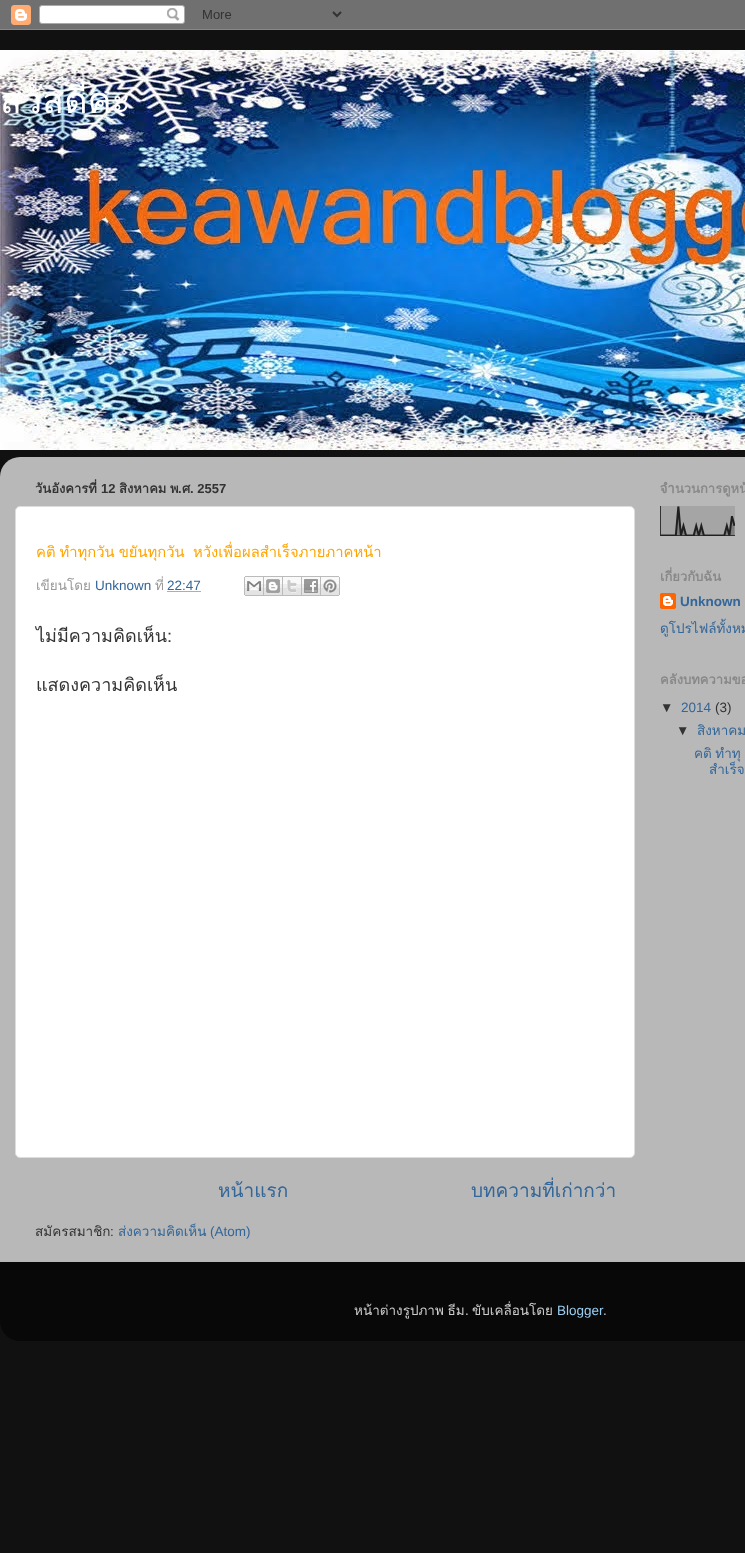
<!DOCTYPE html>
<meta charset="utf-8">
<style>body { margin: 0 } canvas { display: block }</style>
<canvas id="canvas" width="745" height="1553"></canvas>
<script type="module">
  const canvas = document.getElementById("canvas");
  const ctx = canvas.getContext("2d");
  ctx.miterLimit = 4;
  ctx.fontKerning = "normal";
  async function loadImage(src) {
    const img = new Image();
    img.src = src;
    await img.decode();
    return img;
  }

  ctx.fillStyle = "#111111";
  ctx.fillRect(0, 0, 745, 1553);
  ctx.drawImage(await loadImage("img1.png"), 0, 0, 745, 30);
  ctx.drawImage(await loadImage("img2.png"), 0, 50, 745, 400);
  ctx.font = "36px Loma";
  ctx.fillStyle = "#ffffff";
  ctx.fillText("สวัสดีคะ", 0, 113);
  ctx.drawImage(await loadImage("img3.png"), 0, 457, 745, 805);
  ctx.font = "bold 13px Loma";
  ctx.fillStyle = "#333333";
  ctx.fillText("วันอังคารที่", 35, 493);
  ctx.font = "bold 13px Liberation Sans";
  ctx.fillText("12", 101, 493);
  ctx.font = "bold 13px Loma";
  ctx.fillText("สิงหาคม", 119, 493);
  ctx.fillText("พ", 170, 493);
  ctx.font = "bold 13px Liberation Sans";
  ctx.fillText(".", 178, 493);
  ctx.font = "bold 13px Loma";
  ctx.fillText("ศ", 182, 493);
  ctx.font = "bold 13px Liberation Sans";
  ctx.fillText(". 2557", 190, 493);
  ctx.fillStyle = "#ffffff";
  ctx.beginPath();
  ctx.roundRect(15.5, 506.5, 619, 651, 4.5);
  ctx.fill();
  ctx.strokeStyle = "#dddddd";
  ctx.stroke();
  ctx.wordSpacing = "-1px";
  ctx.font = "14.8px Loma";
  ctx.fillStyle = "#ffa500";
  ctx.fillText("คติ ทำทุกวัน ขยันทุกวัน", 36, 557);
  ctx.wordSpacing = "0px";
  ctx.fillText("หวังเพื่อผลสำเร็จภายภาคหน้า", 193, 557);
  ctx.font = "13.5px Loma";
  ctx.fillStyle = "#999999";
  ctx.fillText("เขียนโดย", 36, 590);
  ctx.font = "13.5px Liberation Sans";
  ctx.fillStyle = "#336699";
  ctx.fillText("Unknown", 95, 590);
  ctx.font = "13.5px Loma";
  ctx.fillStyle = "#999999";
  ctx.fillText("ที่", 155, 590);
  ctx.font = "13.5px Liberation Sans";
  ctx.fillStyle = "#336699";
  ctx.fillText("22:47", 167, 590);
  ctx.beginPath();
  ctx.moveTo(167.5, 591.5);
  ctx.lineTo(201, 591.5);
  ctx.strokeStyle = "#336699";
  ctx.setLineDash([1, 1]);
  ctx.stroke();
  ctx.drawImage(await loadImage("img4.png"), 244, 576, 20, 20);
  ctx.drawImage(await loadImage("img5.png"), 264, 576, 19, 20);
  ctx.drawImage(await loadImage("img6.png"), 283, 576, 19, 20);
  ctx.drawImage(await loadImage("img7.png"), 302, 576, 19, 20);
  ctx.drawImage(await loadImage("img8.png"), 321, 576, 19, 20);
  ctx.font = "18px Loma";
  ctx.fillStyle = "#333333";
  ctx.fillText("ไม่มีความคิดเห็น:", 36, 642);
  ctx.fillText("แสดงความคิดเห็น", 36, 691);
  ctx.font = "19px Loma";
  ctx.fillStyle = "#336699";
  ctx.fillText("หน้าแรก", 218, 1197);
  ctx.fillText("บทความที่เก่ากว่า", 471, 1197);
  ctx.font = "13.5px Loma";
  ctx.fillStyle = "#333333";
  ctx.fillText("สมัครสมาชิก", 35, 1236);
  ctx.font = "13.5px Liberation Sans";
  ctx.fillText(":", 110, 1236);
  ctx.font = "13.5px Loma";
  ctx.fillStyle = "#336699";
  ctx.fillText("ส่งความคิดเห็น", 118, 1236);
  ctx.font = "13.5px Liberation Sans";
  ctx.fillText("(Atom)", 210, 1236);
  ctx.font = "bold 13px Loma";
  ctx.fillStyle = "#888888";
  ctx.fillText("จำนวนการดูหน้", 660, 493);
  ctx.drawImage(await loadImage("img9.png"), 660, 506, 75, 30);
  ctx.fillText("เกี่ยวกับฉัน", 660, 581);
  ctx.drawImage(await loadImage("img10.png"), 660, 593, 16, 16);
  ctx.font = "bold 13.5px Liberation Sans";
  ctx.fillStyle = "#336699";
  ctx.fillText("Unknown", 680, 606);
  ctx.font = "13.5px Loma";
  ctx.fillText("ดูโปรไฟล์ทั้งหม", 660, 633);
  ctx.font = "bold 13px Loma";
  ctx.fillStyle = "#888888";
  ctx.fillText("คลังบทความขอ", 660, 684);
  ctx.font = "13.5px Liberation Sans";
  ctx.fillStyle = "#333333";
  ctx.fillText("▼", 660, 712);
  ctx.fillStyle = "#336699";
  ctx.fillText("2014", 681, 712);
  ctx.fillStyle = "#333333";
  ctx.fillText("(3)", 715, 712);
  ctx.fillText("▼", 676, 735);
  ctx.font = "13.5px Loma";
  ctx.fillStyle = "#336699";
  ctx.fillText("สิงหาคม", 697, 735);
  ctx.wordSpacing = "-1px";
  ctx.fillText("คติ ทำทุ", 694, 758);
  ctx.wordSpacing = "0px";
  ctx.fillText("สำเร็จ", 709, 774);
  ctx.drawImage(await loadImage("img11.png"), 0, 1262, 745, 79);
  ctx.wordSpacing = "-1px";
  ctx.fillStyle = "#cccccc";
  ctx.fillText("หน้าต่างรูปภาพ ธีม", 354, 1315);
  ctx.wordSpacing = "0px";
  ctx.font = "13.5px Liberation Sans";
  ctx.fillText(".", 465, 1315);
  ctx.font = "13.5px Loma";
  ctx.fillText("ขับเคลื่อนโดย", 472, 1315);
  ctx.font = "13.5px Liberation Sans";
  ctx.fillStyle = "#99ccee";
  ctx.fillText("Blogger", 557, 1315);
  ctx.fillStyle = "#cccccc";
  ctx.fillText(".", 603, 1315);
</script>
